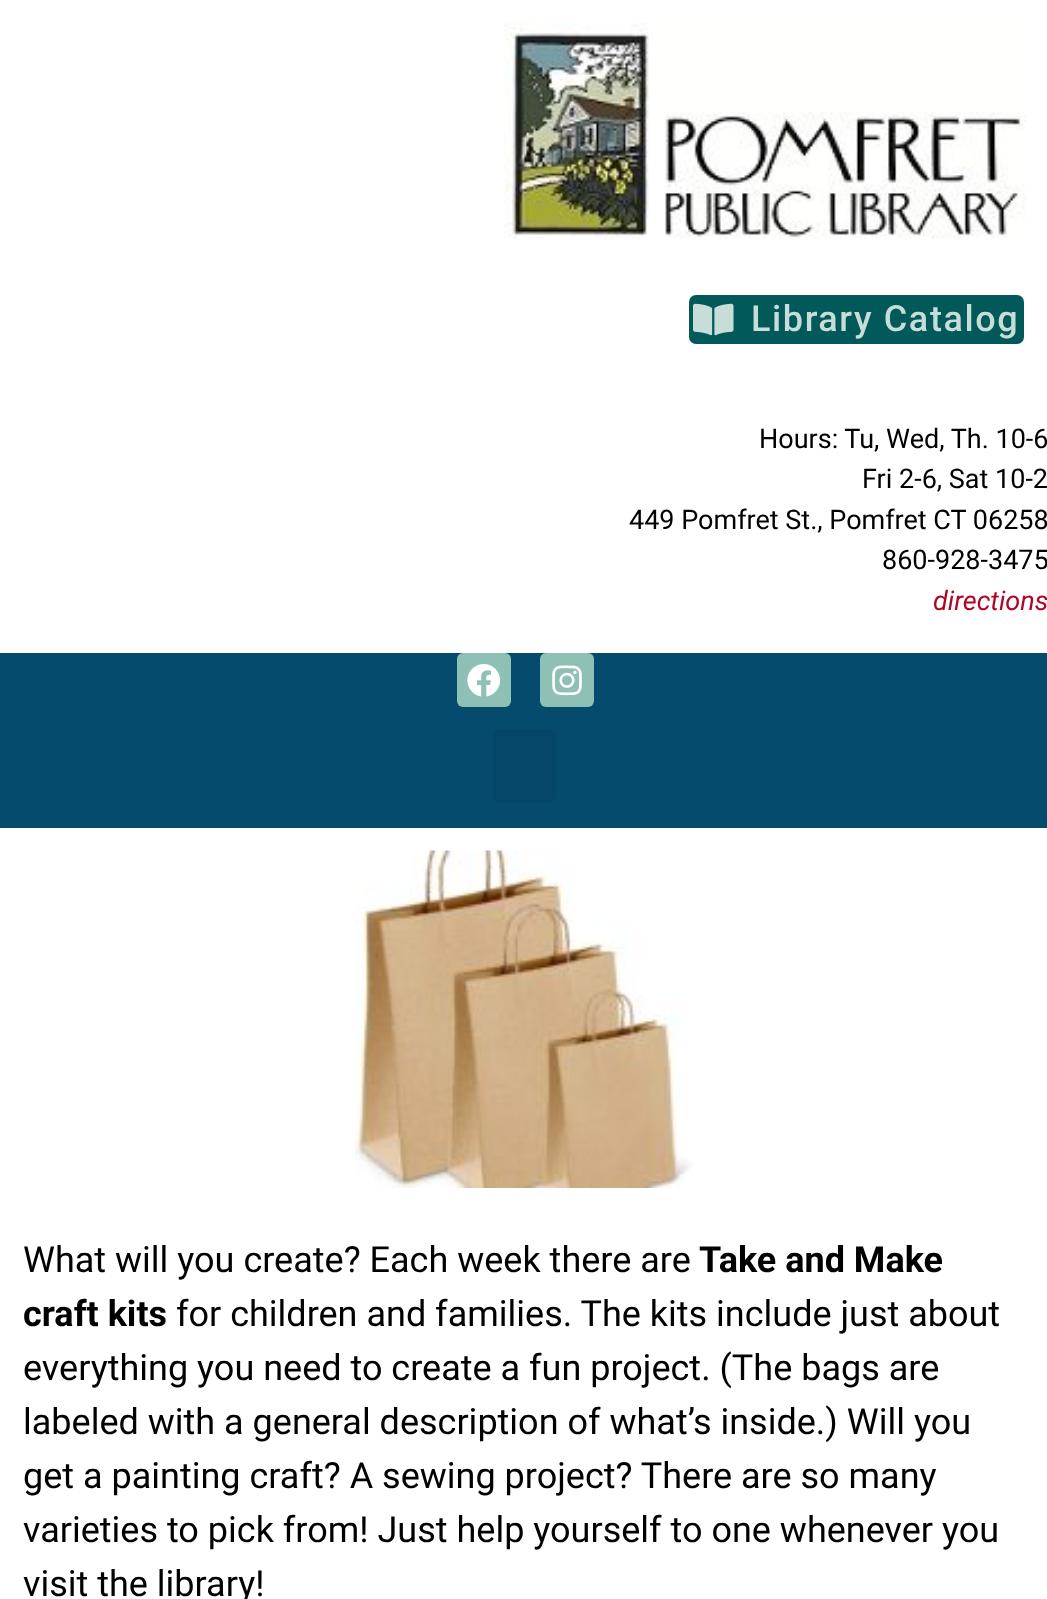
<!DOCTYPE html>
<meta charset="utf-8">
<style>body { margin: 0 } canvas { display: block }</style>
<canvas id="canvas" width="1047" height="1599"></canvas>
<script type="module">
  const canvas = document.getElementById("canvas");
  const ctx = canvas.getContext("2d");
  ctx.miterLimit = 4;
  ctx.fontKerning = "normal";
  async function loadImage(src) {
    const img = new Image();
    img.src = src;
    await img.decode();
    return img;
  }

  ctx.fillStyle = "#ffffff";
  ctx.fillRect(0, 0, 1047, 1599);
  ctx.drawImage(await loadImage("img1.png"), 504, 22, 522, 218);
  ctx.fillStyle = "#015959";
  ctx.beginPath();
  ctx.roundRect(689, 295, 335, 49, 7);
  ctx.fill();
  ctx.drawImage(await loadImage("img2.png"), 693, 303, 41, 33);
  ctx.letterSpacing = "1.6px";
  ctx.font = "500 36px Roboto";
  ctx.fillStyle = "#c6ddd8";
  ctx.fillText("Library Catalog", 751, 331);
  ctx.letterSpacing = "0px";
  ctx.font = "27px Roboto";
  ctx.fillStyle = "#000000";
  ctx.fillText("Hours: Tu, Wed, Th. 10-6", 759, 448);
  ctx.fillText("Fri 2-6, Sat 10-2", 862, 488);
  ctx.fillText("449 Pomfret St., Pomfret CT 06258", 629, 529);
  ctx.fillText("860-928-3475", 882, 569);
  ctx.font = "italic 27px Roboto";
  ctx.fillStyle = "#b00625";
  ctx.fillText("directions", 933, 610);
  ctx.fillStyle = "#054b6d";
  ctx.fillRect(0, 653, 1047, 175);
  ctx.fillStyle = "#8ec0b6";
  ctx.beginPath();
  ctx.roundRect(457, 653, 54, 54, 6);
  ctx.fill();
  ctx.drawImage(await loadImage("img3.png"), 467, 664, 34, 33);
  ctx.beginPath();
  ctx.roundRect(540, 653, 54, 54, 6);
  ctx.fill();
  ctx.drawImage(await loadImage("img4.png"), 552, 665, 30, 31);
  ctx.fillStyle = "#054768";
  ctx.beginPath();
  ctx.roundRect(493, 729, 63, 74, 7);
  ctx.fill();
  ctx.drawImage(await loadImage("img5.png"), 355, 850, 338, 338);
  ctx.font = "36px Roboto";
  ctx.fillStyle = "#000000";
  ctx.fillText("What will you create? Each week there are", 23, 1272);
  ctx.font = "bold 36px Roboto";
  ctx.fillText("Take and Make", 699, 1272);
  ctx.fillText("craft kits", 23, 1326);
  ctx.font = "36px Roboto";
  ctx.fillText("for children and families. The kits include just about", 176, 1326);
  ctx.fillText("everything you need to create a fun project. (The bags are", 23, 1380);
  ctx.fillText("labeled with a general description of what’s inside.) Will you", 23, 1434);
  ctx.fillText("get a painting craft? A sewing project? There are so many", 23, 1488);
  ctx.fillText("varieties to pick from! Just help yourself to one whenever you", 23, 1542);
  ctx.fillText("visit the library!", 23, 1596);
</script>
